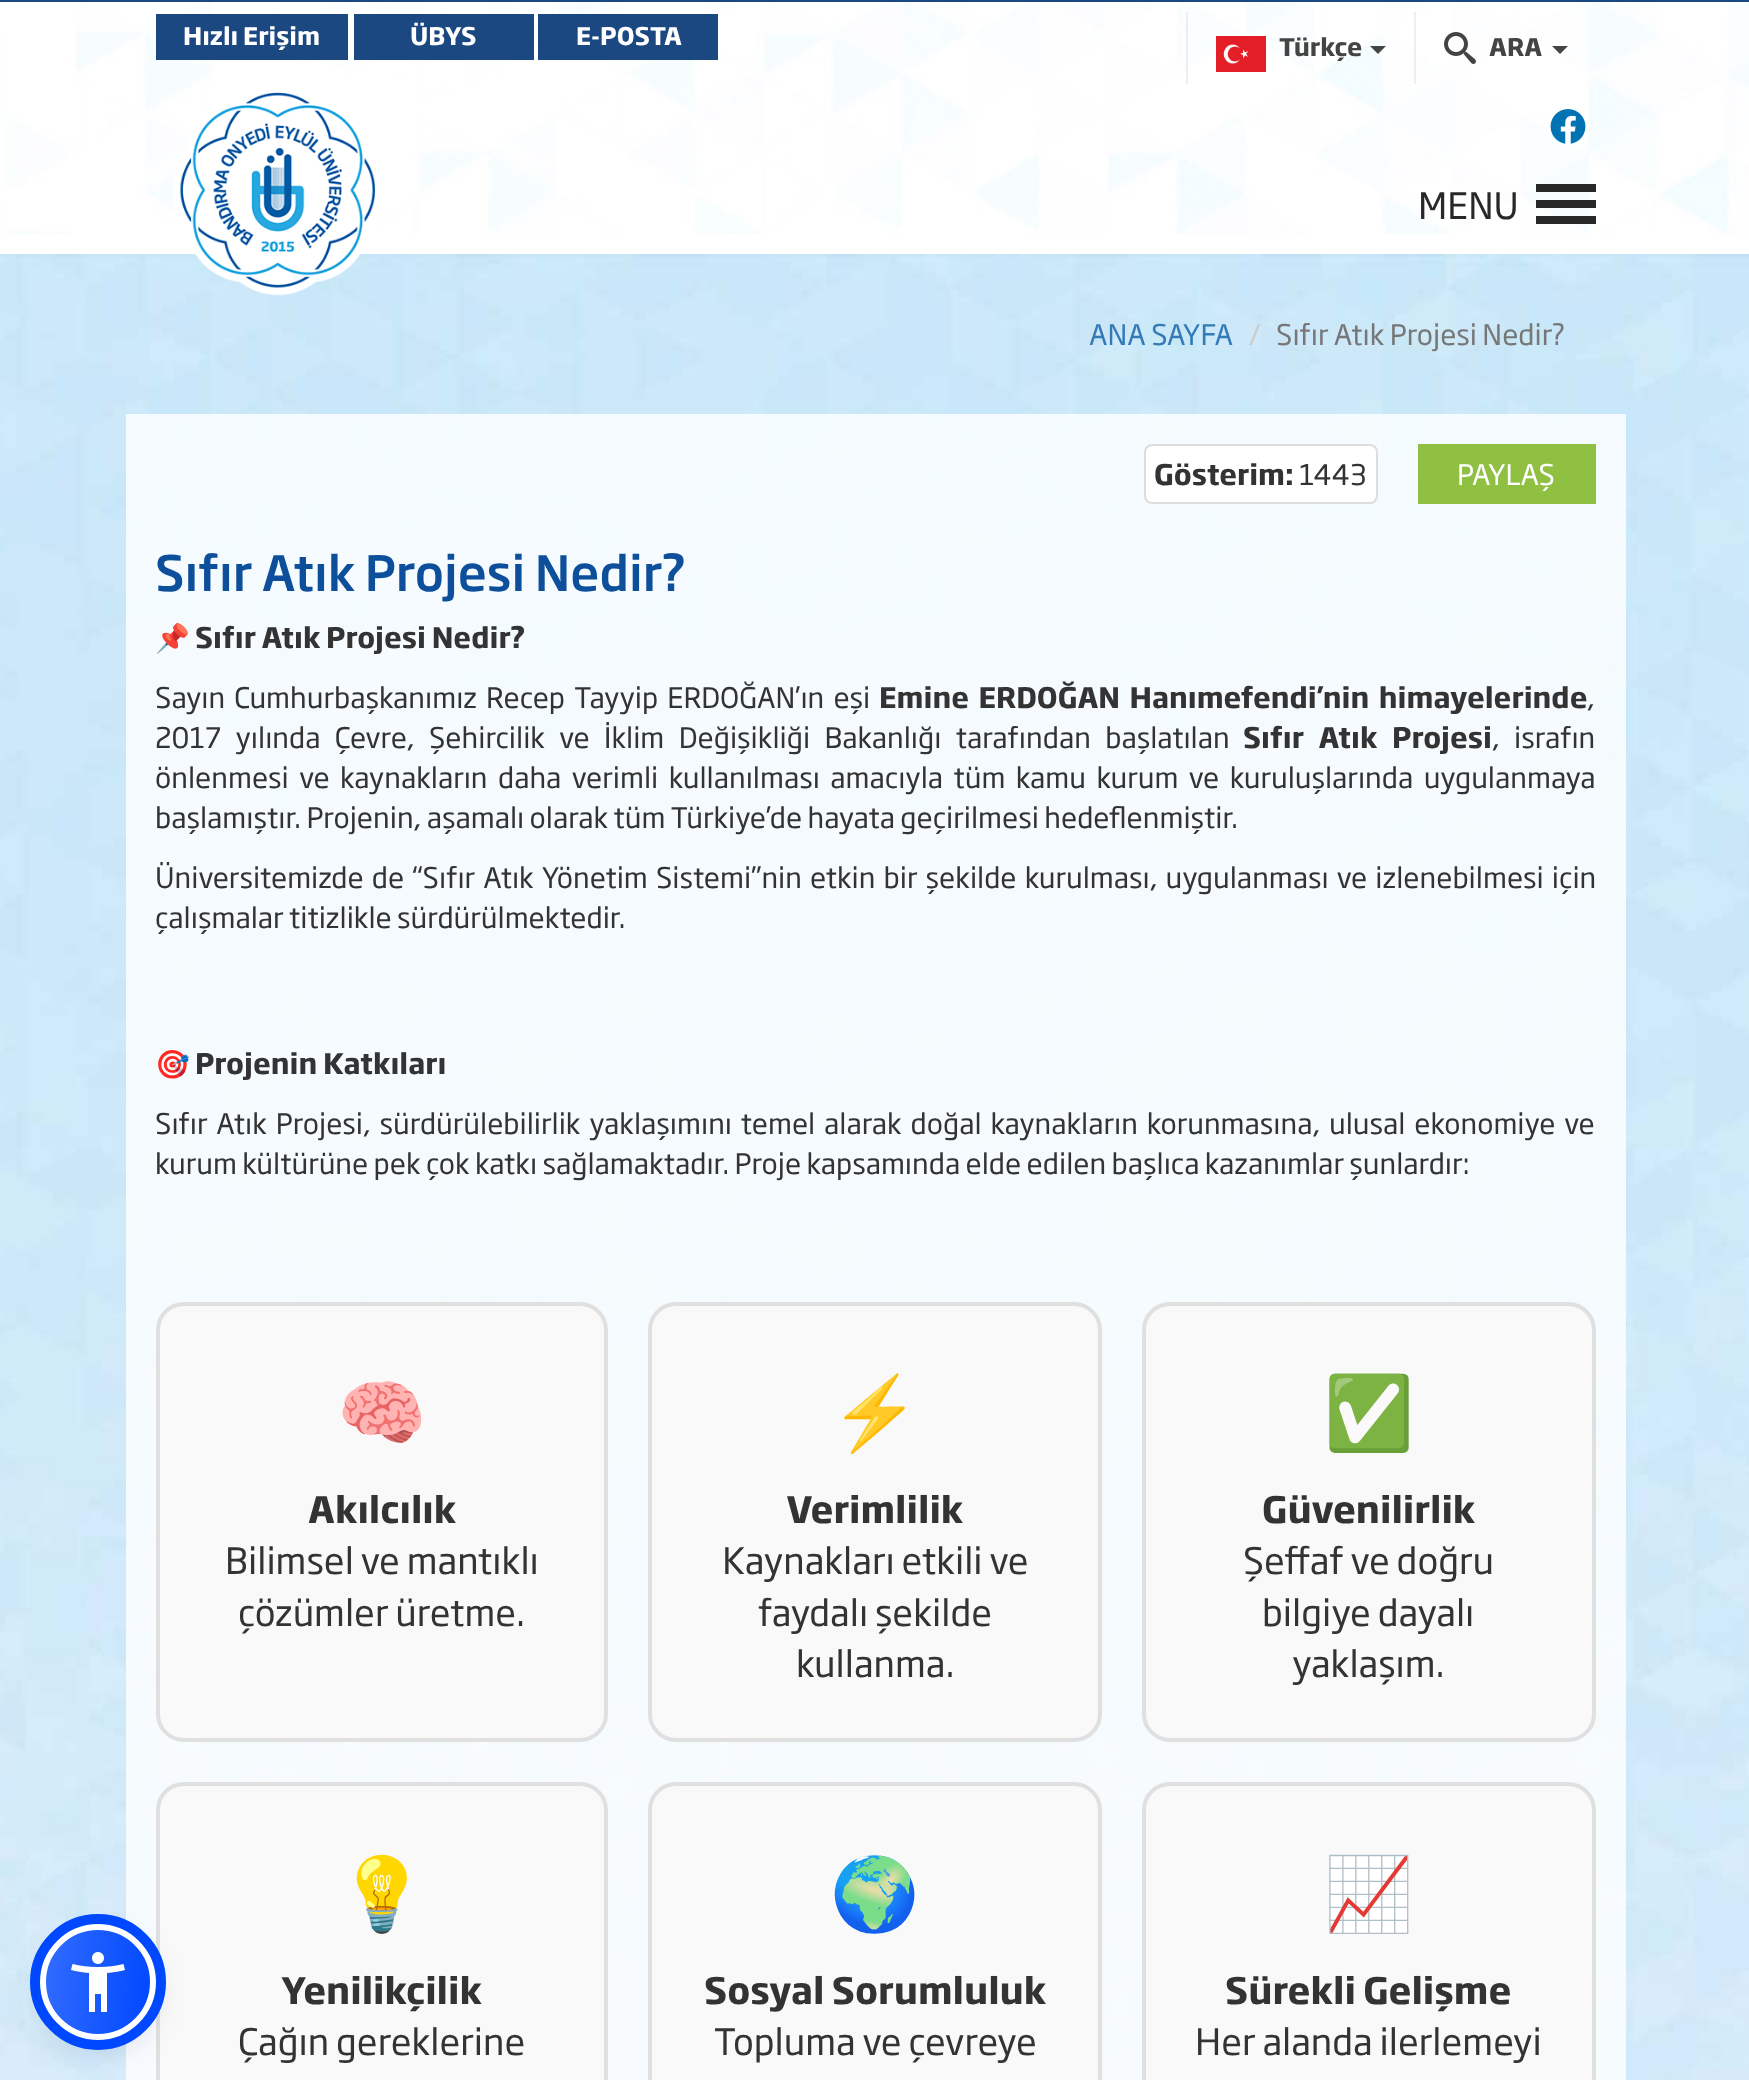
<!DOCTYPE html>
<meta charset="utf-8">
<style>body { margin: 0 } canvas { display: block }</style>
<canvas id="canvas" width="1749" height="2080"></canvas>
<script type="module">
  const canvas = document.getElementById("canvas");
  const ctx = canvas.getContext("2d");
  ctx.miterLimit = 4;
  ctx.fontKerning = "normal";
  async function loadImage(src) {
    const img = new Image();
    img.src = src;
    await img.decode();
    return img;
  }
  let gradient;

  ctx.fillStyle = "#ffffff";
  ctx.fillRect(0, 0, 1749, 2080);
  ctx.drawImage(await loadImage("img1.png"), 0, 2, 1749, 232);
  ctx.fillStyle = "#1b4881";
  ctx.fillRect(0, 0, 1749, 2);
  ctx.fillRect(156, 14, 192, 46);
  ctx.font = "bold 24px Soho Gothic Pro";
  ctx.fillStyle = "#ffffff";
  ctx.fillText("Hızlı Erişim", 183, 45);
  ctx.fillStyle = "#1b4881";
  ctx.fillRect(354, 14, 180, 46);
  ctx.fillStyle = "#ffffff";
  ctx.fillText("ÜBYS", 410, 45);
  ctx.fillStyle = "#1b4881";
  ctx.fillRect(538, 14, 180, 46);
  ctx.fillStyle = "#ffffff";
  ctx.fillText("E-POSTA", 576, 45);
  ctx.fillStyle = "#eeeeee";
  ctx.fillRect(1186, 12, 2, 72);
  ctx.drawImage(await loadImage("img2.png"), 1216, 36, 50, 36);
  ctx.fillStyle = "#444444";
  ctx.fillText("Türkçe", 1279, 56);
  ctx.beginPath();
  ctx.moveTo(1370, 46);
  ctx.lineTo(1386, 46);
  ctx.lineTo(1378, 54);
  ctx.closePath();
  ctx.fill();
  ctx.fillStyle = "#eeeeee";
  ctx.fillRect(1414, 12, 2, 72);
  ctx.drawImage(await loadImage("img3.png"), 1444, 32, 32, 32);
  ctx.fillStyle = "#444444";
  ctx.fillText("ARA", 1489, 56);
  ctx.beginPath();
  ctx.moveTo(1552, 46);
  ctx.lineTo(1568, 46);
  ctx.lineTo(1560, 54);
  ctx.closePath();
  ctx.fill();
  ctx.drawImage(await loadImage("img4.png"), 1550, 109, 36, 35);
  ctx.drawImage(await loadImage("img7.png"), 0, 254, 1749, 1826);
  ctx.drawImage(await loadImage("img5.png"), 173, 92, 203, 204);
  ctx.font = "36px Soho Gothic Pro";
  ctx.fillStyle = "#282828";
  ctx.fillText("MENU", 1418, 219);
  ctx.fillRect(1536, 200, 60, 8);
  ctx.fillRect(1536, 184, 60, 8);
  ctx.fillRect(1536, 216, 60, 8);
  ctx.fillStyle = "rgba(255, 255, 255, 0.8)";
  ctx.fillRect(126, 414, 1500, 1666);
  ctx.fillStyle = "#f9f9f9";
  ctx.beginPath();
  ctx.roundRect(158, 1784, 448, 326, 26);
  ctx.fill();
  ctx.strokeStyle = "#e0e0e0";
  ctx.lineWidth = 4;
  ctx.stroke();
  ctx.fillStyle = "rgba(93, 100, 148, 0.2)";
  ctx.filter = "blur(4px)";
  ctx.beginPath();
  ctx.roundRect(40, 1928, 116, 116, 58);
  ctx.fill();
  ctx.filter = "none";
  ctx.fillStyle = "rgba(37, 44, 97, 0.15)";
  ctx.filter = "blur(15px)";
  ctx.beginPath();
  ctx.roundRect(40, 1934, 116, 116, 58);
  ctx.fill();
  ctx.filter = "none";
  ctx.save();
  ctx.beginPath();
  ctx.roundRect(40, 1924, 116, 116, 58);
  ctx.clip();
  gradient = ctx.createLinearGradient(41, 1976, 155, 1988);
  gradient.addColorStop(0, "#326cff");
  gradient.addColorStop(1, "#0048ff");
  ctx.fillStyle = gradient;
  ctx.fillRect(46, 1930, 104, 104);
  ctx.restore();
  ctx.beginPath();
  ctx.arc(98, 1982, 55, 0, Math.PI * 2);
  ctx.strokeStyle = "#ffffff";
  ctx.lineWidth = 6;
  ctx.stroke();
  ctx.beginPath();
  ctx.arc(98, 1982, 63, 0, Math.PI * 2);
  ctx.strokeStyle = "#0048ff";
  ctx.lineWidth = 10;
  ctx.stroke();
  ctx.drawImage(await loadImage("img6.png"), 71, 1952, 54, 60);
  ctx.font = "28px Soho Gothic Pro";
  ctx.fillStyle = "#337ab7";
  ctx.fillText("ANA SAYFA", 1089, 345);
  ctx.fillStyle = "#cccccc";
  ctx.fillText("/", 1249, 345);
  ctx.fillStyle = "#777777";
  ctx.fillText("Sıfır Atık Projesi Nedir?", 1276, 345);
  ctx.fillStyle = "#ffffff";
  ctx.beginPath();
  ctx.roundRect(1145, 445, 232, 58, 7);
  ctx.fill();
  ctx.strokeStyle = "#dddddd";
  ctx.lineWidth = 2;
  ctx.stroke();
  ctx.font = "bold 28px Soho Gothic Pro";
  ctx.fillStyle = "#333333";
  ctx.fillText("Gösterim:", 1154, 485);
  ctx.font = "28px Soho Gothic Pro";
  ctx.fillText("1443", 1299, 485);
  ctx.fillStyle = "#90c042";
  ctx.fillRect(1418, 444, 178, 60);
  ctx.fillStyle = "#ffffff";
  ctx.fillText("PAYLAŞ", 1457, 485);
  ctx.font = "500 48px Soho Gothic Pro";
  ctx.fillStyle = "#0e4f9b";
  ctx.fillText("Sıfır Atık Projesi Nedir?", 155, 591);
  ctx.font = "28px Noto Color Emoji";
  ctx.fillStyle = "#333333";
  ctx.fillText("📌", 155, 648);
  ctx.font = "bold 28px Soho Gothic Pro";
  ctx.fillText("Sıfır Atık Projesi Nedir?", 195, 648);
  ctx.wordSpacing = "3.75px";
  ctx.font = "28px Soho Gothic Pro";
  ctx.fillText("Sayın Cumhurbaşkanımız Recep Tayyip ERDOĞAN’ın eşi", 155, 708);
  ctx.font = "bold 28px Soho Gothic Pro";
  ctx.fillText("Emine ERDOĞAN Hanımefendi’nin himayelerinde", 879, 708);
  ctx.wordSpacing = "0px";
  ctx.font = "28px Soho Gothic Pro";
  ctx.fillText(",", 1587, 708);
  ctx.wordSpacing = "9px";
  ctx.fillText("2017 yılında Çevre, Şehircilik ve İklim Değişikliği Bakanlığı tarafından başlatılan", 155, 748);
  ctx.font = "bold 28px Soho Gothic Pro";
  ctx.fillText("Sıfır Atık Projesi", 1243, 748);
  ctx.font = "28px Soho Gothic Pro";
  ctx.fillText(", israfın", 1492, 748);
  ctx.wordSpacing = "5.1px";
  ctx.fillText("önlenmesi ve kaynakların daha verimli kullanılması amacıyla tüm kamu kurum ve kuruluşlarında uygulanmaya", 155, 788);
  ctx.wordSpacing = "0px";
  ctx.fillText("başlamıştır. Projenin, aşamalı olarak tüm Türkiye’de hayata geçirilmesi hedeflenmiştir.", 155, 828);
  ctx.wordSpacing = "2.75px";
  ctx.fillText("Üniversitemizde de “Sıfır Atık Yönetim Sistemi”nin etkin bir şekilde kurulması, uygulanması ve izlenebilmesi için", 155, 888);
  ctx.wordSpacing = "0px";
  ctx.fillText("çalışmalar titizlikle sürdürülmektedir.", 155, 928);
  ctx.font = "28px Noto Color Emoji";
  ctx.fillText("🎯", 155, 1074);
  ctx.font = "bold 28px Soho Gothic Pro";
  ctx.fillText("Projenin Katkıları", 195, 1074);
  ctx.wordSpacing = "3.5px";
  ctx.font = "28px Soho Gothic Pro";
  ctx.fillText("Sıfır Atık Projesi, sürdürülebilirlik yaklaşımını temel alarak doğal kaynakların korunmasına, ulusal ekonomiye ve", 155, 1134);
  ctx.wordSpacing = "0px";
  ctx.fillText("kurum kültürüne pek çok katkı sağlamaktadır. Proje kapsamında elde edilen başlıca kazanımlar şunlardır:", 155, 1174);
  ctx.fillStyle = "#f9f9f9";
  ctx.beginPath();
  ctx.roundRect(158, 1304, 448, 436, 26);
  ctx.fill();
  ctx.strokeStyle = "#e0e0e0";
  ctx.lineWidth = 4;
  ctx.stroke();
  ctx.font = "72px Noto Color Emoji";
  ctx.fillStyle = "#4a90e2";
  ctx.fillText("🧠", 337, 1438);
  ctx.font = "bold 36px Soho Gothic Pro";
  ctx.fillStyle = "#333333";
  ctx.fillText("Akılcılık", 308, 1523);
  ctx.font = "36px Soho Gothic Pro";
  ctx.fillText("Bilimsel ve mantıklı", 225, 1574);
  ctx.fillText("çözümler üretme.", 238, 1626);
  ctx.fillStyle = "#f9f9f9";
  ctx.beginPath();
  ctx.roundRect(650, 1304, 450, 436, 26);
  ctx.fill();
  ctx.stroke();
  ctx.font = "72px Noto Color Emoji";
  ctx.fillStyle = "#4a90e2";
  ctx.fillText("⚡", 830, 1438);
  ctx.font = "bold 36px Soho Gothic Pro";
  ctx.fillStyle = "#333333";
  ctx.fillText("Verimlilik", 786, 1523);
  ctx.font = "36px Soho Gothic Pro";
  ctx.fillText("Kaynakları etkili ve", 722, 1574);
  ctx.fillText("faydalı şekilde", 758, 1626);
  ctx.fillText("kullanma.", 796, 1677);
  ctx.fillStyle = "#f9f9f9";
  ctx.beginPath();
  ctx.roundRect(1144, 1304, 450, 436, 26);
  ctx.fill();
  ctx.stroke();
  ctx.font = "72px Noto Color Emoji";
  ctx.fillStyle = "#4a90e2";
  ctx.fillText("✅", 1324, 1438);
  ctx.font = "bold 36px Soho Gothic Pro";
  ctx.fillStyle = "#333333";
  ctx.fillText("Güvenilirlik", 1262, 1523);
  ctx.font = "36px Soho Gothic Pro";
  ctx.fillText("Şeffaf ve doğru", 1243, 1574);
  ctx.fillText("bilgiye dayalı", 1262, 1626);
  ctx.fillText("yaklaşım.", 1292, 1677);
  ctx.font = "72px Noto Color Emoji";
  ctx.fillStyle = "#4a90e2";
  ctx.fillText("💡", 337, 1919);
  ctx.font = "bold 36px Soho Gothic Pro";
  ctx.fillStyle = "#333333";
  ctx.fillText("Yenilikçilik", 281, 2004);
  ctx.font = "36px Soho Gothic Pro";
  ctx.fillText("Çağın gereklerine", 238, 2055);
  ctx.fillStyle = "#f9f9f9";
  ctx.beginPath();
  ctx.roundRect(650, 1784, 450, 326, 26);
  ctx.fill();
  ctx.stroke();
  ctx.font = "72px Noto Color Emoji";
  ctx.fillStyle = "#4a90e2";
  ctx.fillText("🌍", 830, 1919);
  ctx.font = "bold 36px Soho Gothic Pro";
  ctx.fillStyle = "#333333";
  ctx.fillText("Sosyal Sorumluluk", 704, 2004);
  ctx.font = "36px Soho Gothic Pro";
  ctx.fillText("Topluma ve çevreye", 714, 2055);
  ctx.fillStyle = "#f9f9f9";
  ctx.beginPath();
  ctx.roundRect(1144, 1784, 450, 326, 26);
  ctx.fill();
  ctx.stroke();
  ctx.font = "72px Noto Color Emoji";
  ctx.fillStyle = "#4a90e2";
  ctx.fillText("📈", 1324, 1919);
  ctx.font = "bold 36px Soho Gothic Pro";
  ctx.fillStyle = "#333333";
  ctx.fillText("Sürekli Gelişme", 1225, 2004);
  ctx.font = "36px Soho Gothic Pro";
  ctx.fillText("Her alanda ilerlemeyi", 1195, 2055);
</script>
